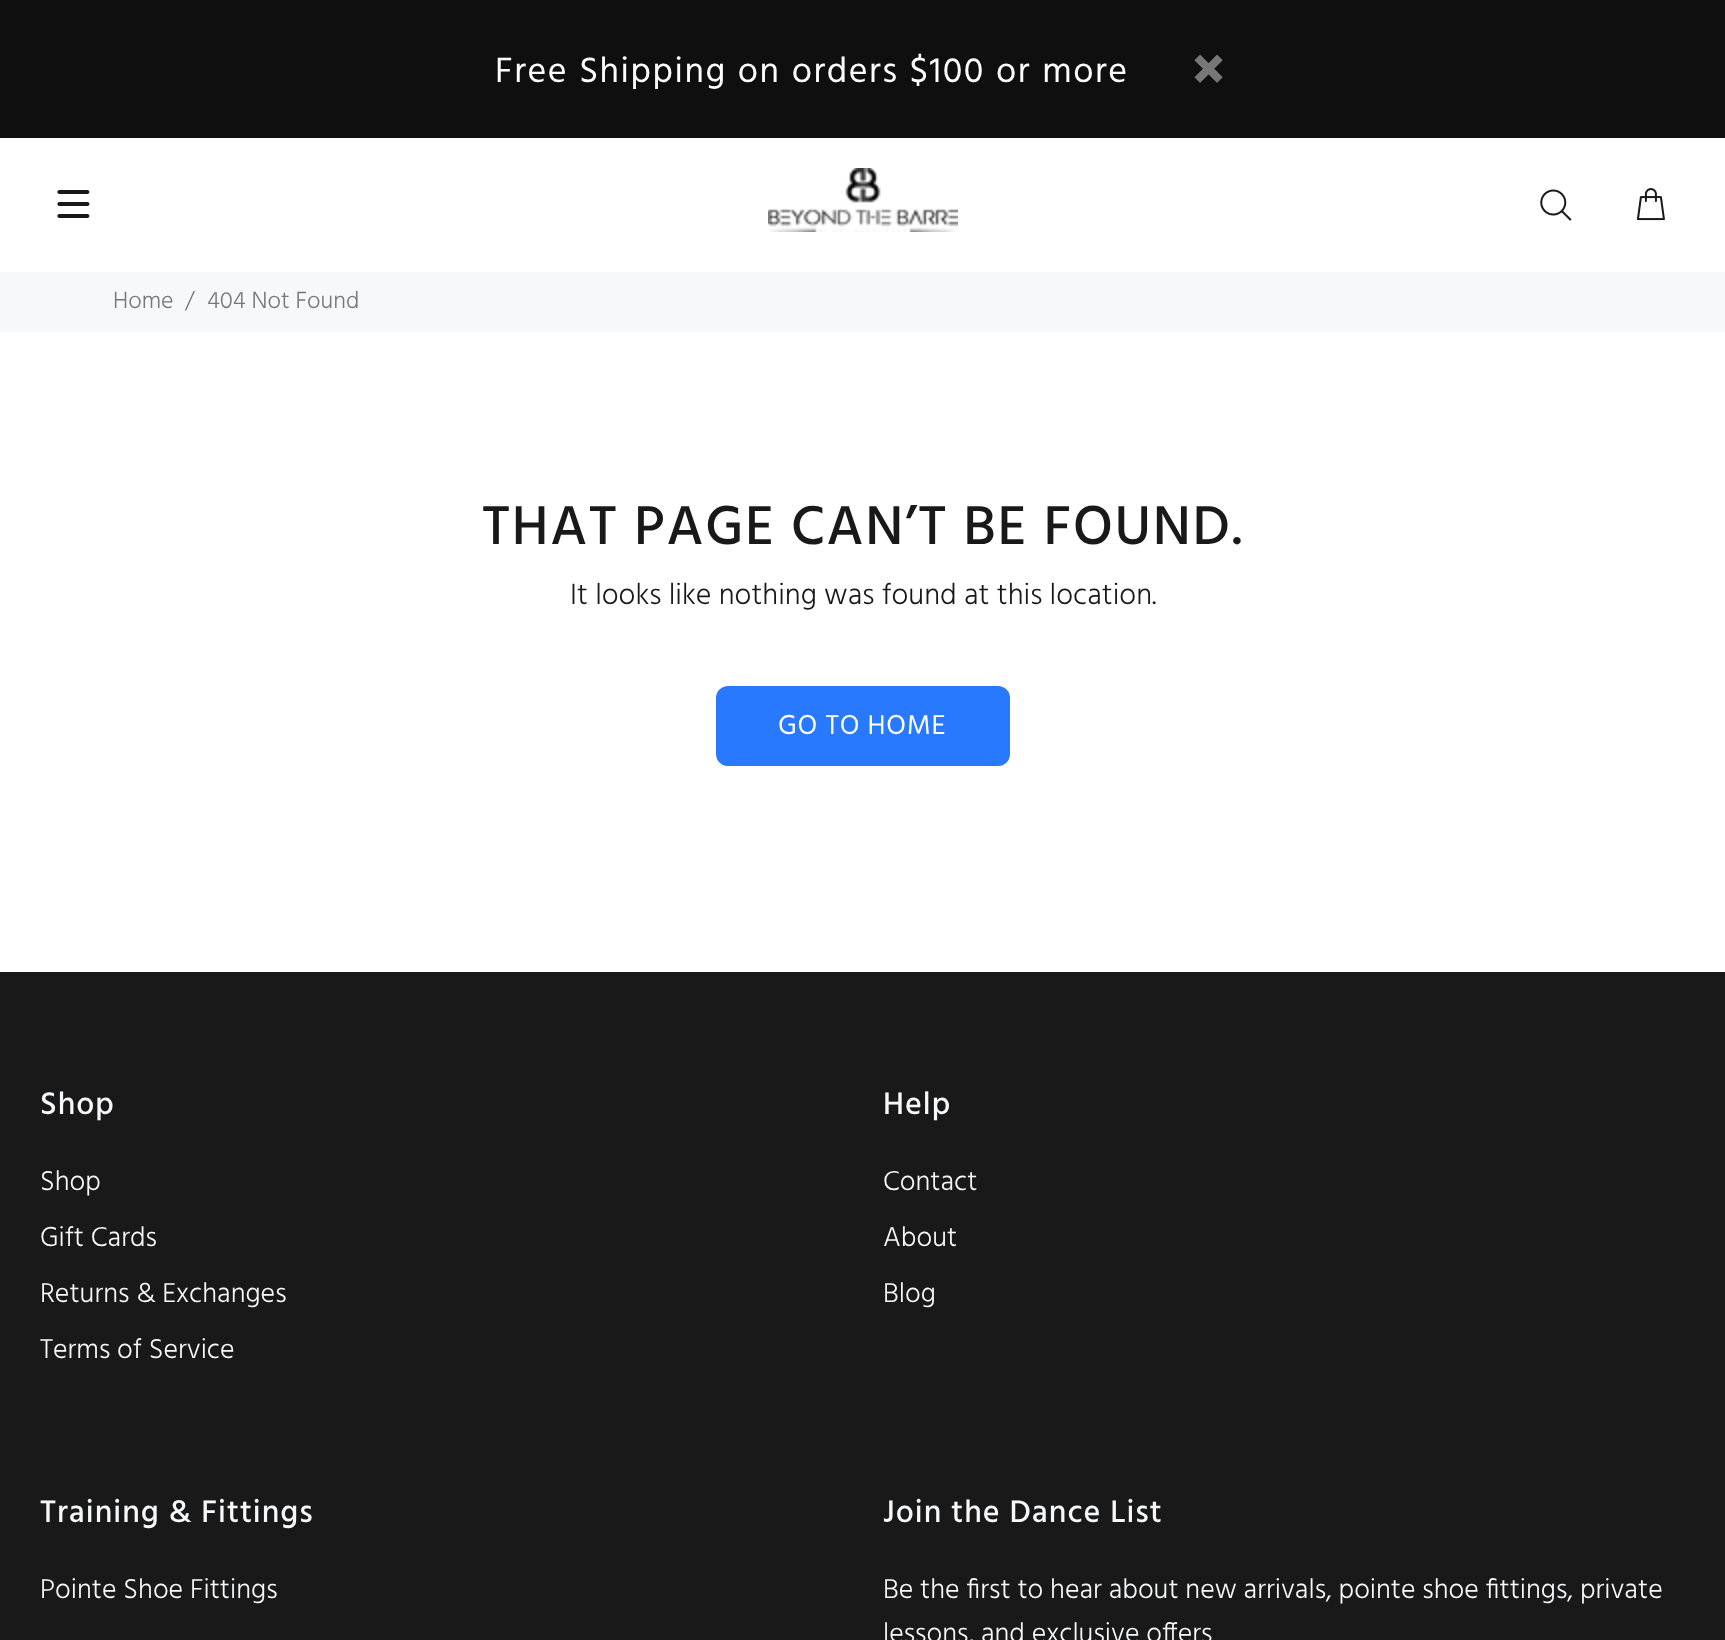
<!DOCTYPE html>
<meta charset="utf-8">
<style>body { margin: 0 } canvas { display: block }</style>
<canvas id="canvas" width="1725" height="1640"></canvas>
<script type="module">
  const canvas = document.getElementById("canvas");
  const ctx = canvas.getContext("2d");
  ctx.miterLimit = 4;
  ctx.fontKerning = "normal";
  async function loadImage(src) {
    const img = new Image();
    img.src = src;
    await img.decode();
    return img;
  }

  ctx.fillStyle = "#ffffff";
  ctx.fillRect(0, 0, 1725, 1640);
  ctx.fillStyle = "#0f0f0f";
  ctx.fillRect(0, 0, 1725, 138);
  ctx.letterSpacing = "1.55px";
  ctx.wordSpacing = "0.75px";
  ctx.font = "36px Hind";
  ctx.fillStyle = "#ffffff";
  ctx.fillText("Free Shipping on orders $100 or more", 495, 82);
  ctx.drawImage(await loadImage("img1.png"), 1194, 54, 29, 29);
  ctx.drawImage(await loadImage("img2.png"), 57, 190, 33, 28);
  ctx.drawImage(await loadImage("img3.png"), 768, 168, 190, 64);
  ctx.drawImage(await loadImage("img4.png"), 1540, 189, 32, 32);
  ctx.drawImage(await loadImage("img5.png"), 1636, 188, 29, 33);
  ctx.fillStyle = "#f7f8fa";
  ctx.fillRect(0, 272, 1725, 60);
  ctx.letterSpacing = "0px";
  ctx.wordSpacing = "0px";
  ctx.font = "300 24px Hind";
  ctx.fillStyle = "#777777";
  ctx.fillText("Home", 113, 308);
  ctx.fillText("/", 185, 308);
  ctx.fillText("404 Not Found", 207, 308);
  ctx.letterSpacing = "1.7px";
  ctx.font = "500 56px Hind";
  ctx.fillStyle = "#191919";
  ctx.fillText("THAT PAGE CAN’T BE FOUND.", 482, 544);
  ctx.letterSpacing = "0px";
  ctx.font = "300 30px Hind";
  ctx.fillText("It looks like nothing was found at this location.", 570, 604);
  ctx.fillStyle = "#2879fe";
  ctx.beginPath();
  ctx.roundRect(716, 686, 294, 80, 12);
  ctx.fill();
  ctx.letterSpacing = "0.75px";
  ctx.font = "28px Hind";
  ctx.fillStyle = "#ffffff";
  ctx.fillText("GO TO HOME", 778, 734);
  ctx.fillStyle = "#191919";
  ctx.fillRect(0, 972, 1725, 668);
  ctx.letterSpacing = "1px";
  ctx.font = "500 32px Hind";
  ctx.fillStyle = "#f7f8fa";
  ctx.fillText("Shop", 40, 1114);
  ctx.letterSpacing = "0px";
  ctx.font = "300 28px Hind";
  ctx.fillText("Shop", 40, 1190);
  ctx.fillText("Gift Cards", 40, 1246);
  ctx.fillText("Returns & Exchanges", 40, 1302);
  ctx.fillText("Terms of Service", 40, 1358);
  ctx.letterSpacing = "1px";
  ctx.font = "500 32px Hind";
  ctx.fillText("Help", 883, 1114);
  ctx.letterSpacing = "0px";
  ctx.font = "300 28px Hind";
  ctx.fillText("Contact", 883, 1190);
  ctx.fillText("About", 883, 1246);
  ctx.fillText("Blog", 883, 1302);
  ctx.letterSpacing = "1px";
  ctx.font = "500 32px Hind";
  ctx.fillText("Training & Fittings", 40, 1522);
  ctx.letterSpacing = "0px";
  ctx.font = "300 28px Hind";
  ctx.fillText("Pointe Shoe Fittings", 40, 1598);
  ctx.letterSpacing = "1px";
  ctx.font = "500 32px Hind";
  ctx.fillText("Join the Dance List", 883, 1522);
  ctx.letterSpacing = "0px";
  ctx.font = "300 28px Hind";
  ctx.fillText("Be the first to hear about new arrivals, pointe shoe fittings, private", 883, 1598);
  ctx.fillText("lessons, and exclusive offers", 883, 1642);
</script>
